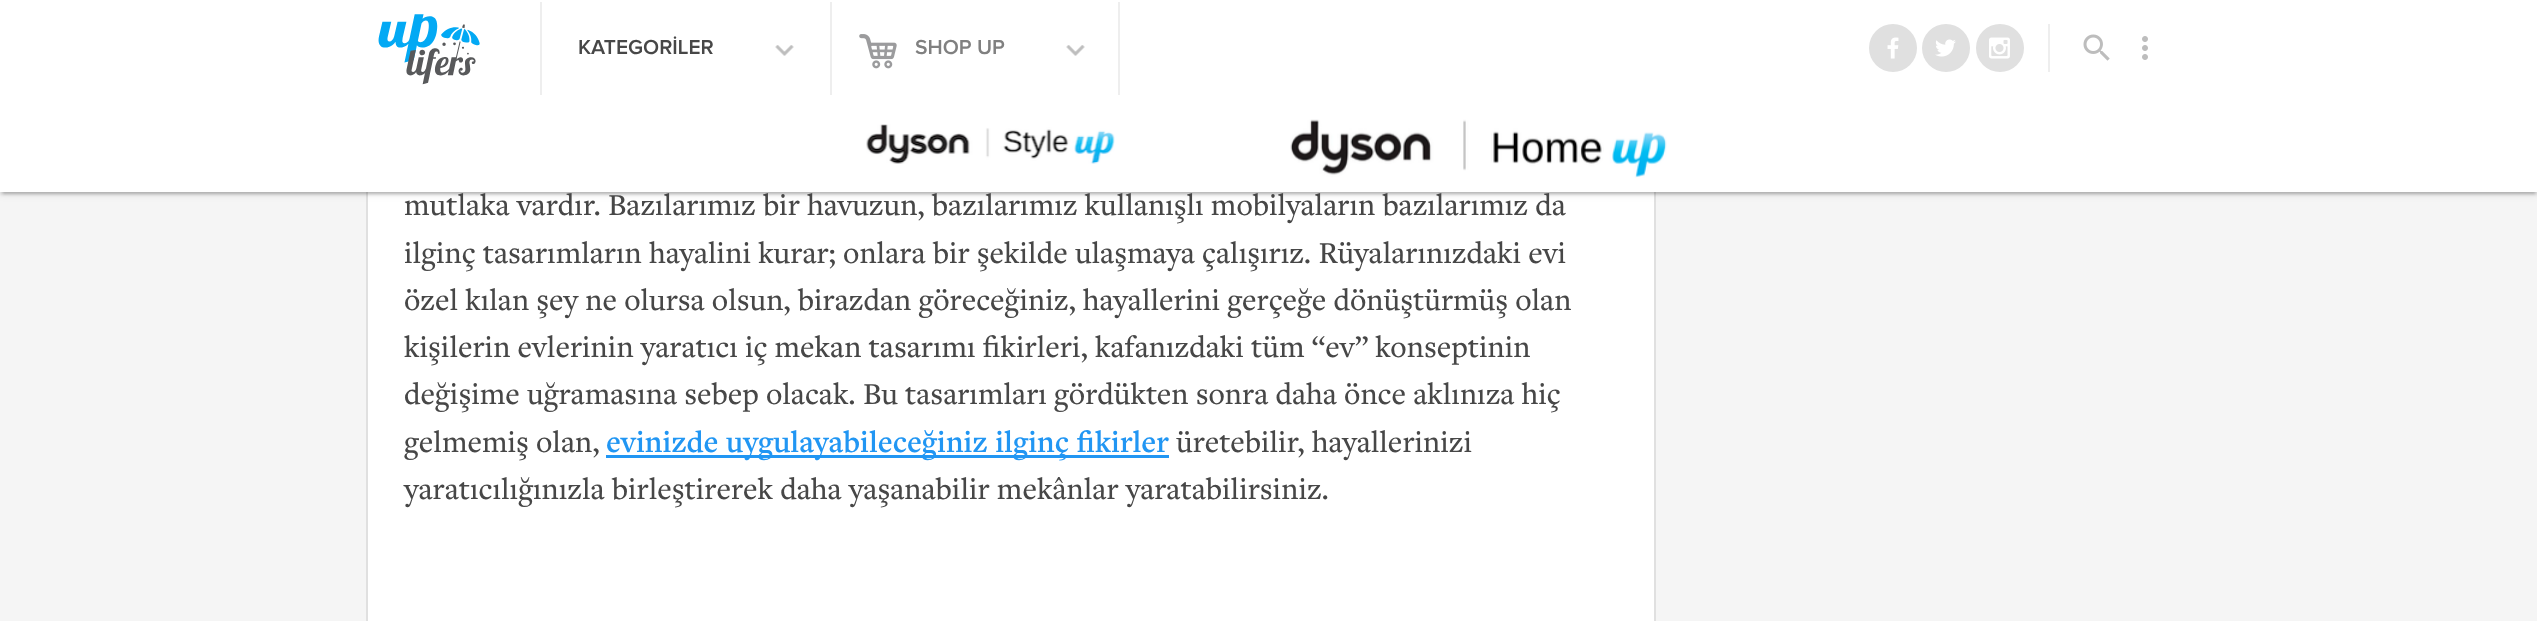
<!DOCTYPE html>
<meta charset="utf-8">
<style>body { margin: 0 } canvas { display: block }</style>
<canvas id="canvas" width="2537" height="621"></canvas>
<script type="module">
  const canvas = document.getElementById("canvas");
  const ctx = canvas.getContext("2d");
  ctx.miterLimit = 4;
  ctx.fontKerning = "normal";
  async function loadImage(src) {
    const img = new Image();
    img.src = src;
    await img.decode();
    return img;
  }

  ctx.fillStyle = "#f5f5f5";
  ctx.fillRect(0, 0, 2537, 621);
  ctx.fillStyle = "#ffffff";
  ctx.fillRect(368, 192, 1286, 429);
  ctx.strokeStyle = "#e0e0e0";
  ctx.lineWidth = 2;
  ctx.strokeRect(367, -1, 1288, 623);
  ctx.fillStyle = "rgba(0, 0, 0, 0.08)";
  ctx.filter = "blur(4px)";
  ctx.beginPath();
  ctx.rect(0, 2, 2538, 192);
  ctx.fill();
  ctx.filter = "none";
  ctx.fillStyle = "rgba(0, 0, 0, 0.14)";
  ctx.filter = "blur(1px)";
  ctx.beginPath();
  ctx.rect(3, 8, 2532, 186);
  ctx.fill();
  ctx.filter = "none";
  ctx.fillStyle = "rgba(0, 0, 0, 0.1)";
  ctx.filter = "blur(1.5px)";
  ctx.beginPath();
  ctx.rect(0, 3, 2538, 192);
  ctx.fill();
  ctx.filter = "none";
  ctx.fillStyle = "#ffffff";
  ctx.fillRect(0, 0, 2537, 192);
  ctx.drawImage(await loadImage("img1.png"), 378, 14, 102, 71);
  ctx.fillStyle = "#eeeeee";
  ctx.fillRect(830, 2, 2, 93);
  ctx.fillRect(540, 2, 2, 93);
  ctx.font = "600 21px Proxima Nova";
  ctx.fillStyle = "#474747";
  ctx.fillText("KATEGORİLER", 578, 54);
  ctx.drawImage(await loadImage("img2.png"), 775, 45, 19, 11);
  ctx.fillStyle = "#eeeeee";
  ctx.fillRect(1118, 2, 2, 93);
  ctx.drawImage(await loadImage("img3.png"), 859, 34, 38, 35);
  ctx.fillStyle = "#808080";
  ctx.fillText("SHOP UP", 915, 54);
  ctx.drawImage(await loadImage("img2.png"), 1066, 45, 19, 11);
  ctx.fillStyle = "#e0e0e0";
  ctx.beginPath();
  ctx.arc(1893, 48, 24, 0, Math.PI * 2);
  ctx.fill();
  ctx.drawImage(await loadImage("img4.png"), 1887, 37, 12, 22);
  ctx.beginPath();
  ctx.arc(1946, 48, 24, 0, Math.PI * 2);
  ctx.fill();
  ctx.drawImage(await loadImage("img5.png"), 1935, 39, 21, 18);
  ctx.beginPath();
  ctx.arc(2000, 48, 24, 0, Math.PI * 2);
  ctx.fill();
  ctx.drawImage(await loadImage("img6.png"), 1989, 37, 21, 22);
  ctx.fillStyle = "#eeeeee";
  ctx.fillRect(2048, 24, 2, 48);
  ctx.drawImage(await loadImage("img7.png"), 2083, 34, 27, 27);
  ctx.drawImage(await loadImage("img8.png"), 2142, 36, 6, 24);
  ctx.drawImage(await loadImage("img9.png"), 866, 124, 249, 40);
  ctx.drawImage(await loadImage("img10.png"), 1290, 119, 377, 59);
  ctx.font = "500 31.5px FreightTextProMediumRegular";
  ctx.fillStyle = "#474747";
  ctx.fillText("mutlaka vardır. Bazılarımız bir havuzun, bazılarımız kullanışlı mobilyaların bazılarımız da", 404, 215);
  ctx.fillText("ilginç tasarımların hayalini kurar; onlara bir şekilde ulaşmaya çalışırız. Rüyalarınızdaki evi", 404, 263);
  ctx.fillText("özel kılan şey ne olursa olsun, birazdan göreceğiniz, hayallerini gerçeğe dönüştürmüş olan", 404, 310);
  ctx.fillText("kişilerin evlerinin yaratıcı iç mekan tasarımı fikirleri, kafanızdaki tüm “ev” konseptinin", 404, 357);
  ctx.fillText("değişime uğramasına sebep olacak. Bu tasarımları gördükten sonra daha önce aklınıza hiç", 404, 404);
  ctx.fillText("gelmemiş olan,", 404, 452);
  ctx.fillStyle = "#2196f3";
  ctx.fillRect(606, 455, 563, 3);
  ctx.wordSpacing = "0.5px";
  ctx.font = "600 31.5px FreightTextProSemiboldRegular";
  ctx.fillText("evinizde uygulayabileceğiniz ilginç fikirler", 606, 452);
  ctx.wordSpacing = "0px";
  ctx.font = "500 31.5px FreightTextProMediumRegular";
  ctx.fillStyle = "#474747";
  ctx.fillText("üretebilir, hayallerinizi", 1176, 452);
  ctx.fillText("yaratıcılığınızla birleştirerek daha yaşanabilir mekânlar yaratabilirsiniz.", 404, 499);
</script>
